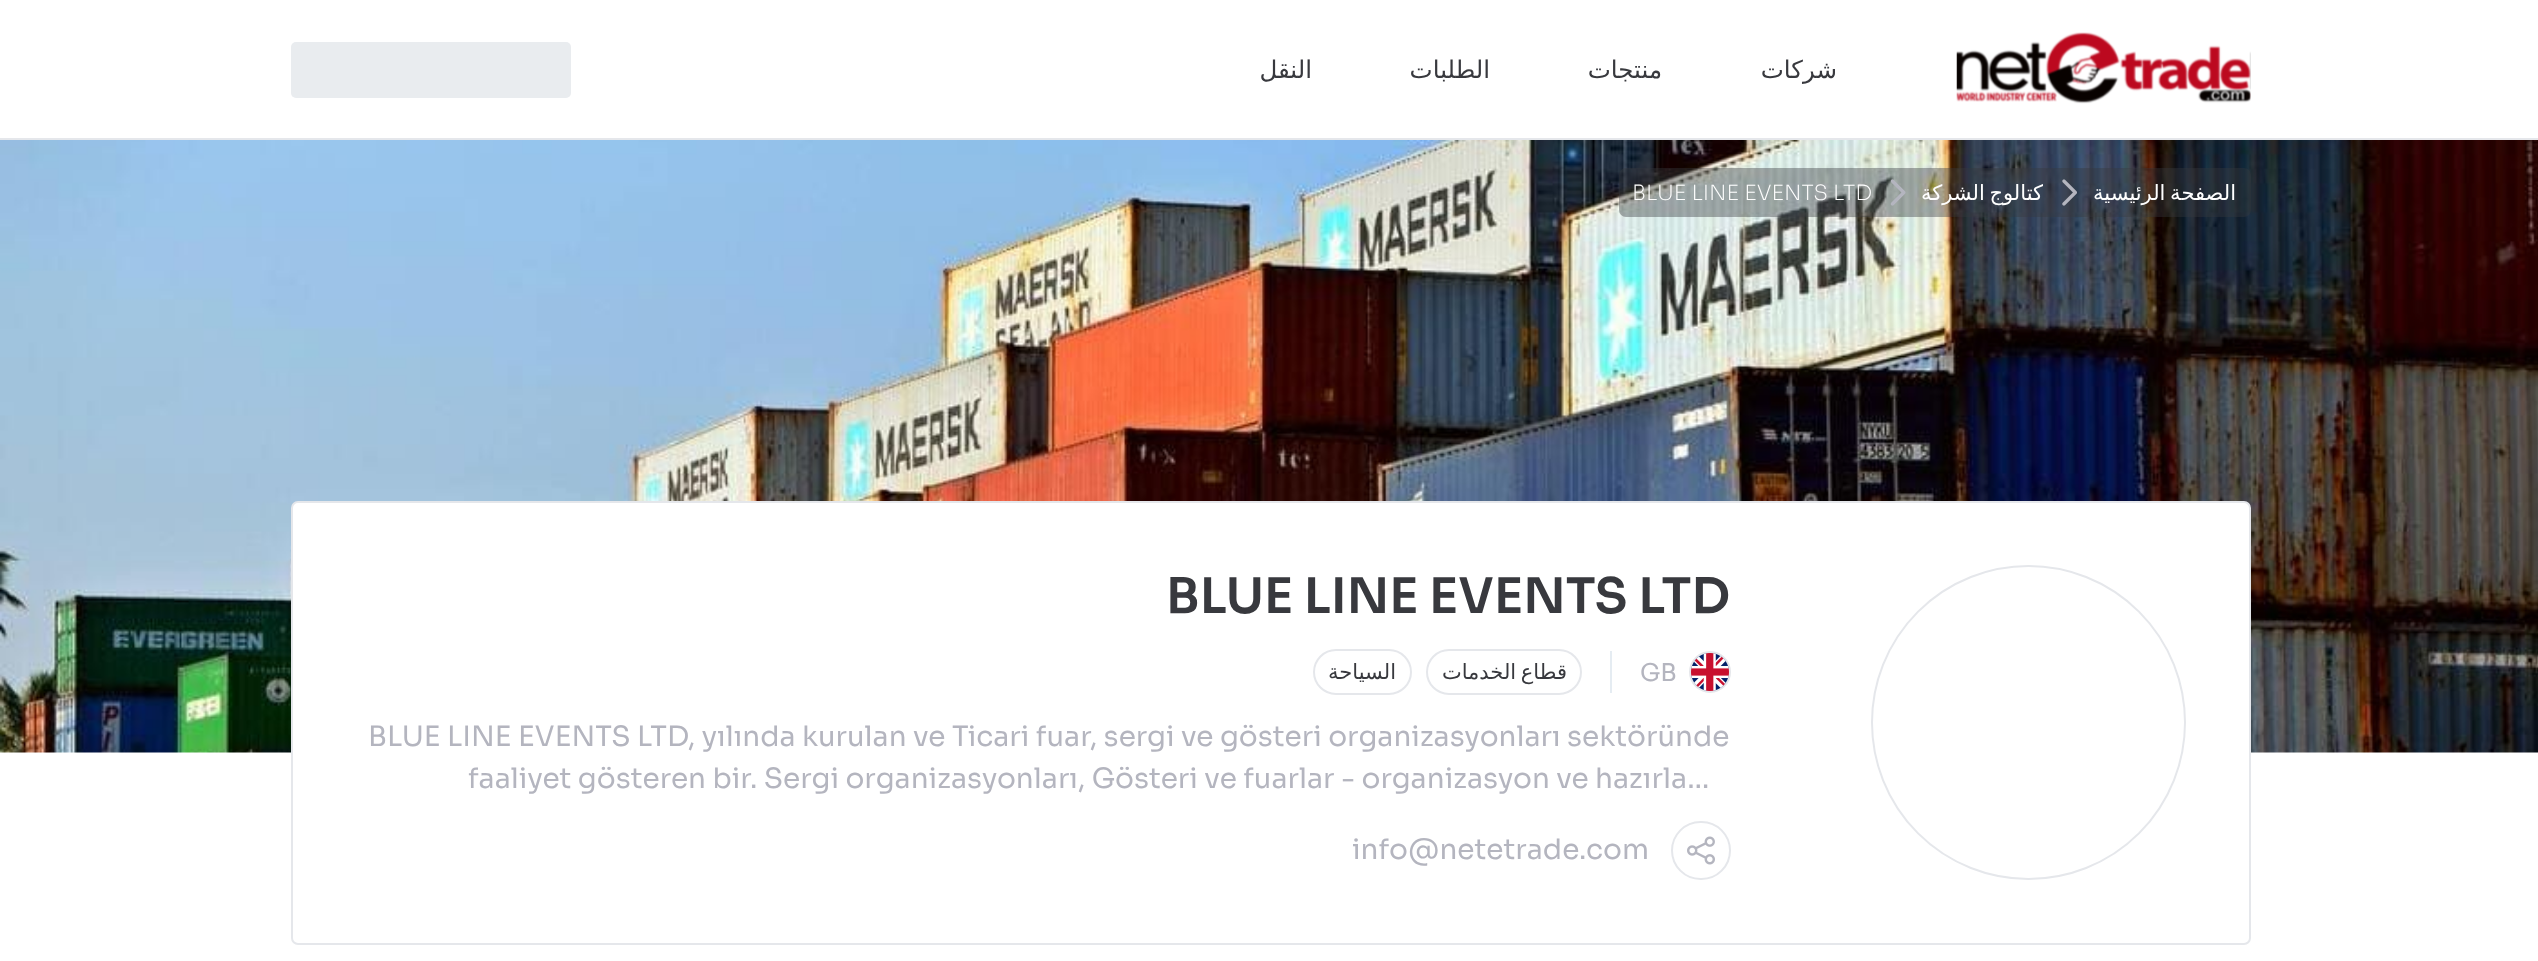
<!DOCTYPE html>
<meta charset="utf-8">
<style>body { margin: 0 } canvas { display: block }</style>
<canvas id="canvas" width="2538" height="961"></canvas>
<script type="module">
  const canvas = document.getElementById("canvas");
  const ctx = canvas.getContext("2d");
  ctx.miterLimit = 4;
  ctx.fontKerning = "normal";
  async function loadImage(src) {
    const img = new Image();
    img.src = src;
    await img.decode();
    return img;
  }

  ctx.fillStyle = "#ffffff";
  ctx.fillRect(0, 0, 2538, 961);
  ctx.fillStyle = "#e5e7eb";
  ctx.fillRect(0, 138, 2538, 2);
  ctx.fillStyle = "#e9ecef";
  ctx.beginPath();
  ctx.roundRect(291, 42, 280, 56, 5);
  ctx.fill();
  ctx.direction = "rtl";
  ctx.font = "24.5px DejaVu Sans";
  ctx.fillStyle = "#38393e";
  ctx.fillText("النقل", 1312, 78);
  ctx.fillText("الطلبات", 1490, 78);
  ctx.fillText("منتجات", 1662, 78);
  ctx.fillText("شركات", 1837, 78);
  ctx.drawImage(await loadImage("img1.png"), 1956, 32, 295, 72);
  ctx.drawImage(await loadImage("img2.png"), 0, 140, 2538, 613);
  ctx.fillStyle = "rgba(56, 57, 62, 0.4)";
  ctx.beginPath();
  ctx.roundRect(1619, 168, 632, 49, 7);
  ctx.fill();
  ctx.direction = "ltr";
  ctx.font = "200 21px Sora";
  ctx.fillStyle = "#ffffff";
  ctx.fillText("BLUE LINE EVENTS LTD", 1632, 200);
  ctx.drawImage(await loadImage("img3.png"), 1890, 179, 16, 27);
  ctx.wordSpacing = "-2px";
  ctx.direction = "rtl";
  ctx.font = "21px DejaVu Sans";
  ctx.fillText("كتالوج الشركة", 2043, 200);
  ctx.drawImage(await loadImage("img4.png"), 2062, 179, 15, 27);
  ctx.fillText("الصفحة الرئيسية", 2236, 200);
  ctx.beginPath();
  ctx.roundRect(292, 502, 1958, 442, 6);
  ctx.fill();
  ctx.strokeStyle = "#e5e7eb";
  ctx.lineWidth = 2;
  ctx.stroke();
  ctx.wordSpacing = "0px";
  ctx.direction = "ltr";
  ctx.font = "600 49px Sora";
  ctx.fillStyle = "#38393e";
  ctx.fillText("BLUE LINE EVENTS LTD", 1166, 613);
  ctx.beginPath();
  ctx.roundRect(1314, 650, 97, 44, 22);
  ctx.stroke();
  ctx.direction = "rtl";
  ctx.font = "21px DejaVu Sans";
  ctx.fillText("السياحة", 1396, 679);
  ctx.beginPath();
  ctx.roundRect(1427, 650, 154, 44, 22);
  ctx.stroke();
  ctx.save();
  ctx.beginPath();
  ctx.rect(1442, 658, 124, 28);
  ctx.clip();
  ctx.wordSpacing = "-2px";
  ctx.fillText("قطاع الخدمات", 1567, 679);
  ctx.restore();
  ctx.fillStyle = "#e5ecf2";
  ctx.fillRect(1610, 651, 2, 42);
  ctx.direction = "ltr";
  ctx.font = "24.5px Sora";
  ctx.fillStyle = "#b4b5bf";
  ctx.fillText("GB", 1640, 681);
  ctx.beginPath();
  ctx.arc(1710, 672, 20, 0, Math.PI * 2);
  ctx.stroke();
  ctx.drawImage(await loadImage("img5.png"), 1691, 653, 38, 38);
  ctx.font = "28px Sora";
  ctx.fillText("BLUE LINE EVENTS LTD, yılında kurulan ve Ticari fuar, sergi ve gösteri organizasyonları sektöründe", 368, 746);
  ctx.fillText("faaliyet gösteren bir. Sergi organizasyonları, Gösteri ve fuarlar - organizasyon ve hazırla…", 468, 788);
  ctx.fillText("info@netetrade.com", 1352, 859);
  ctx.beginPath();
  ctx.roundRect(1672, 822, 58, 57, 28.5);
  ctx.stroke();
  ctx.drawImage(await loadImage("img6.png"), 1687, 836, 28, 29);
  ctx.beginPath();
  ctx.arc(2028.5, 722.5, 156.5, 0, Math.PI * 2);
  ctx.stroke();
</script>
